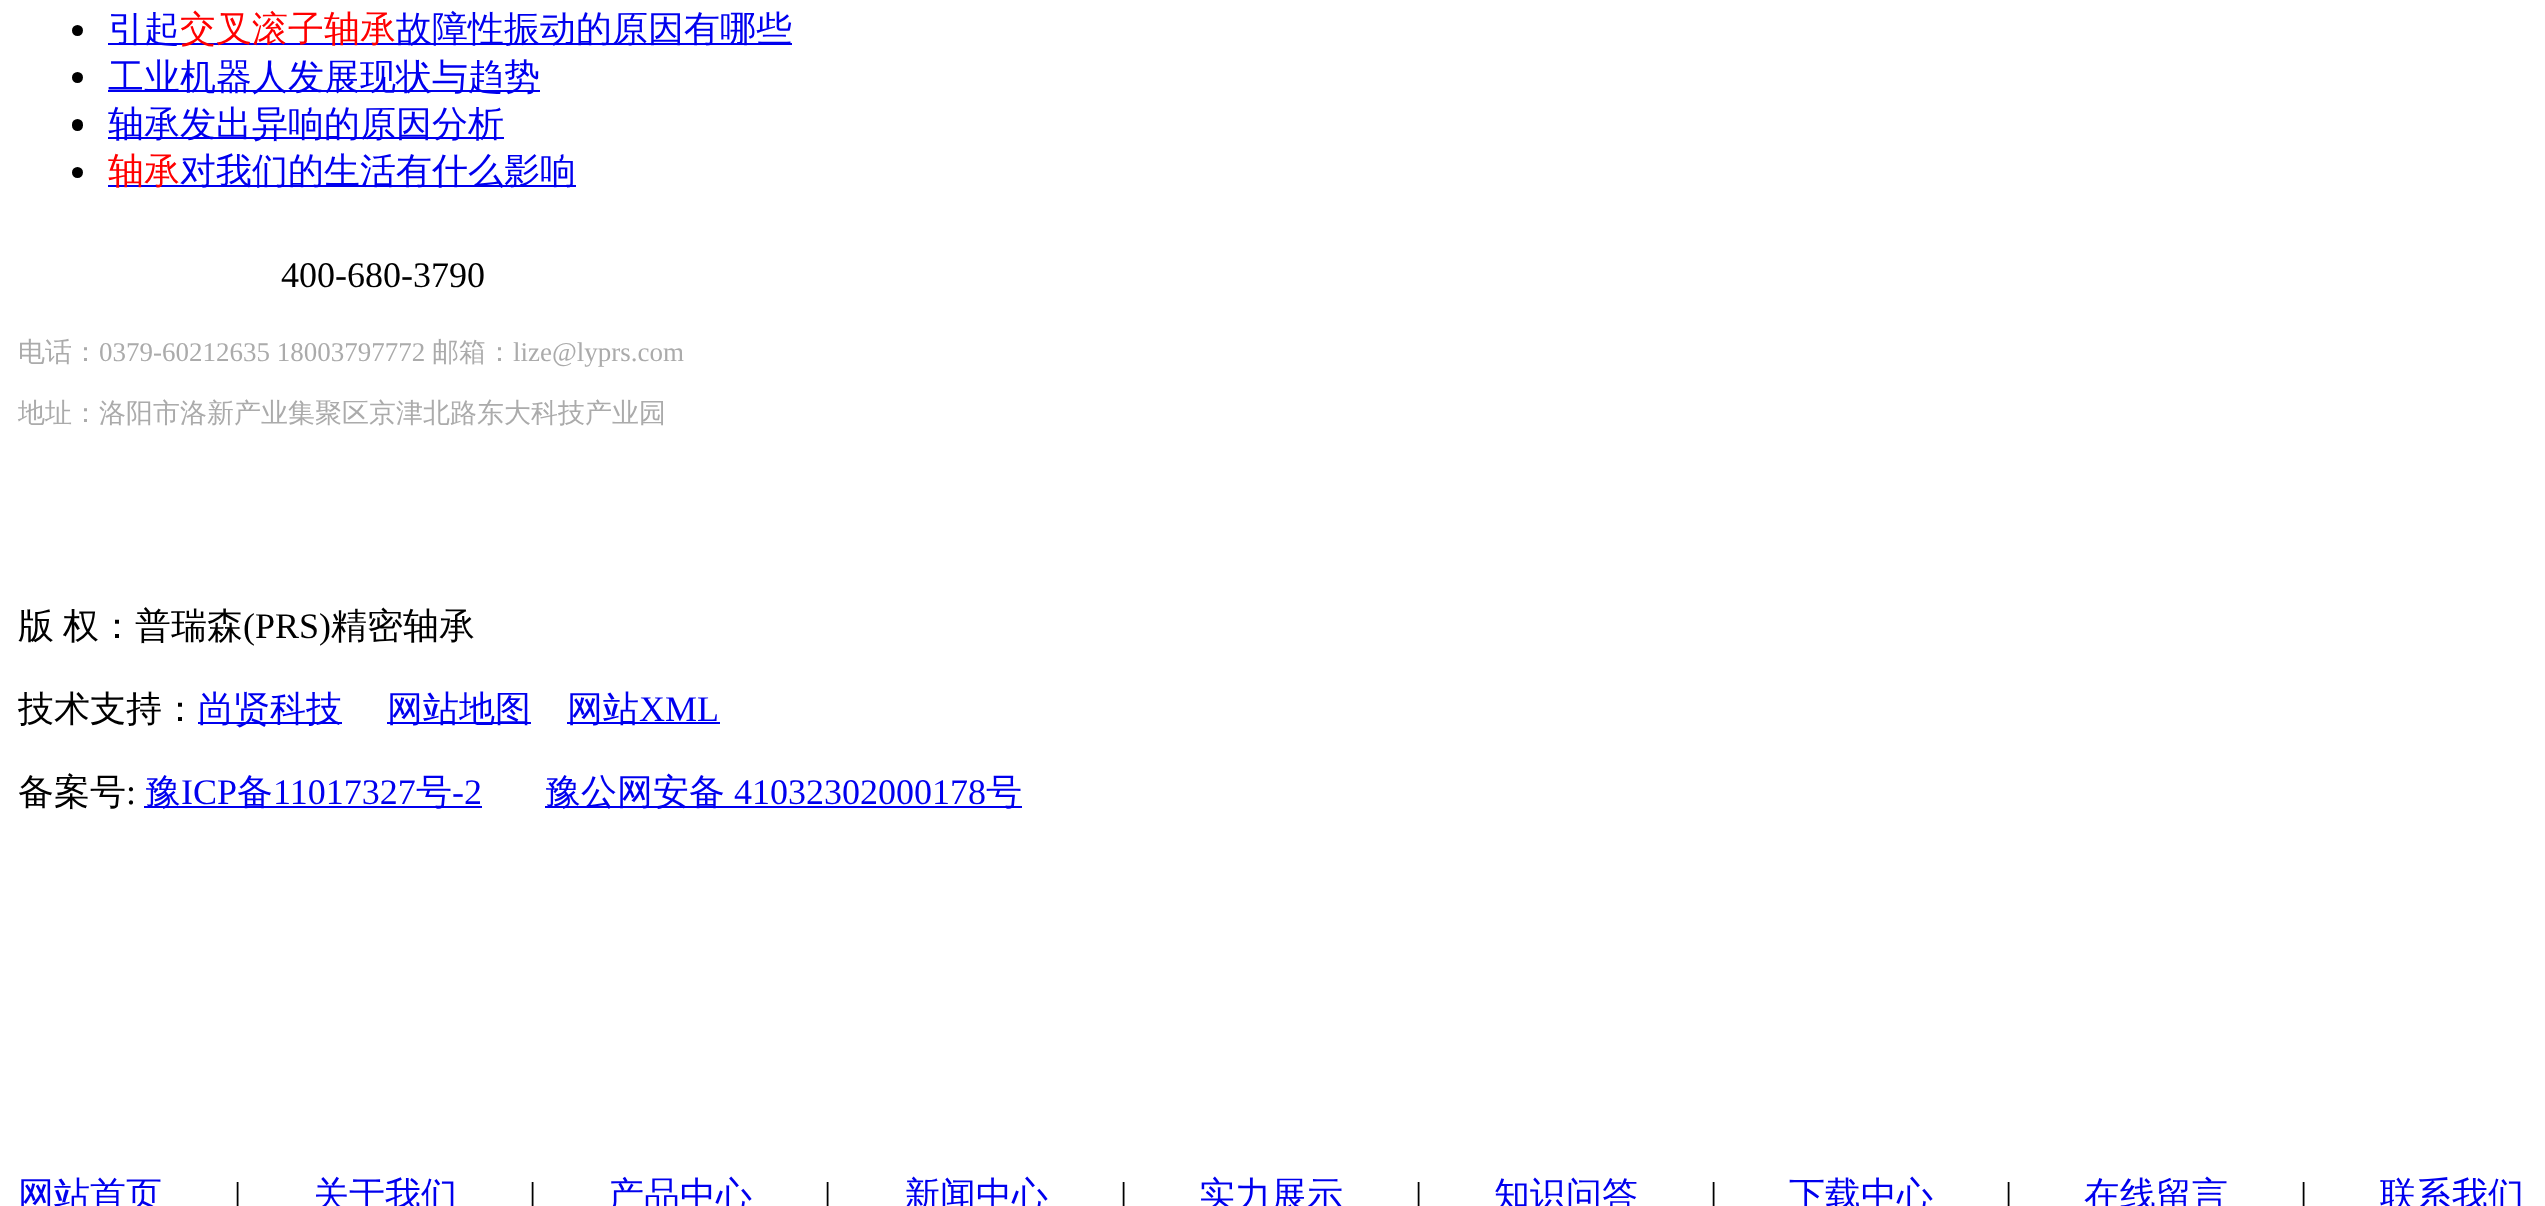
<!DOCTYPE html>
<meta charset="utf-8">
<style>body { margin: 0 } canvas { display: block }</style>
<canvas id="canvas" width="2545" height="1206"></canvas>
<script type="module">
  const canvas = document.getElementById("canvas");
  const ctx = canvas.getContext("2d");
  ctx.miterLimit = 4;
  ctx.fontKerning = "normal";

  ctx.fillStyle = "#ffffff";
  ctx.fillRect(0, 0, 2545, 1206);
  ctx.fillStyle = "#000000";
  ctx.beginPath();
  ctx.arc(77.5, 30.5, 5.5, 0, Math.PI * 2);
  ctx.fill();
  ctx.fillStyle = "#0000ee";
  ctx.fillRect(108, 43, 684, 2);
  ctx.font = "500 36px WenQuanYi Zen Hei";
  ctx.fillText("引起", 108, 41);
  ctx.fillStyle = "#ff0000";
  ctx.fillText("交叉滚子轴承", 180, 41);
  ctx.fillStyle = "#0000ee";
  ctx.fillText("故障性振动的原因有哪些", 396, 41);
  ctx.fillStyle = "#000000";
  ctx.beginPath();
  ctx.arc(77.5, 77.5, 5.5, 0, Math.PI * 2);
  ctx.fill();
  ctx.fillStyle = "#0000ee";
  ctx.fillRect(108, 90, 432, 2);
  ctx.fillText("工业机器人发展现状与趋势", 108, 89);
  ctx.fillStyle = "#000000";
  ctx.beginPath();
  ctx.roundRect(72, 119, 11, 12, 5.5);
  ctx.fill();
  ctx.fillStyle = "#0000ee";
  ctx.fillRect(108, 137, 396, 2);
  ctx.fillText("轴承发出异响的原因分析", 108, 136);
  ctx.fillStyle = "#000000";
  ctx.beginPath();
  ctx.arc(77.5, 172.5, 5.5, 0, Math.PI * 2);
  ctx.fill();
  ctx.fillStyle = "#0000ee";
  ctx.fillRect(108, 185, 468, 2);
  ctx.fillStyle = "#ff0000";
  ctx.fillText("轴承", 108, 183);
  ctx.fillStyle = "#0000ee";
  ctx.fillText("对我们的生活有什么影响", 180, 183);
  ctx.font = "36px Liberation Serif";
  ctx.fillStyle = "#000000";
  ctx.fillText("400-680-3790", 281, 287);
  ctx.font = "500 27px WenQuanYi Zen Hei";
  ctx.fillStyle = "#ababab";
  ctx.fillText("电话：", 18, 361);
  ctx.font = "27px Liberation Serif";
  ctx.fillText("0379-60212635 18003797772", 99, 361);
  ctx.font = "500 27px WenQuanYi Zen Hei";
  ctx.fillText("邮箱：", 432, 361);
  ctx.font = "27px Liberation Serif";
  ctx.fillText("lize@lyprs.com", 513, 361);
  ctx.font = "500 27px WenQuanYi Zen Hei";
  ctx.fillText("地址：洛阳市洛新产业集聚区京津北路东大科技产业园", 18, 422);
  ctx.font = "500 36px WenQuanYi Zen Hei";
  ctx.fillStyle = "#000000";
  ctx.fillText("版", 18, 638);
  ctx.fillText("权：普瑞森", 63, 638);
  ctx.font = "36px Liberation Serif";
  ctx.fillText("(PRS)", 243, 638);
  ctx.font = "500 36px WenQuanYi Zen Hei";
  ctx.fillText("精密轴承", 331, 638);
  ctx.fillText("技术支持：", 18, 721);
  ctx.fillStyle = "#0000ee";
  ctx.fillRect(198, 722, 144, 2);
  ctx.fillText("尚贤科技", 198, 721);
  ctx.fillRect(387, 722, 144, 2);
  ctx.fillText("网站地图", 387, 721);
  ctx.fillRect(567, 722, 153, 2);
  ctx.fillText("网站", 567, 721);
  ctx.font = "36px Liberation Serif";
  ctx.fillText("XML", 639, 721);
  ctx.font = "500 36px WenQuanYi Zen Hei";
  ctx.fillStyle = "#000000";
  ctx.fillText("备案号", 18, 804);
  ctx.font = "36px Liberation Serif";
  ctx.fillText(":", 126, 804);
  ctx.fillStyle = "#0000ee";
  ctx.fillRect(144, 806, 338, 2);
  ctx.font = "500 36px WenQuanYi Zen Hei";
  ctx.fillText("豫", 145, 804);
  ctx.font = "36px Liberation Serif";
  ctx.fillText("ICP", 181, 804);
  ctx.font = "500 36px WenQuanYi Zen Hei";
  ctx.fillText("备", 237, 804);
  ctx.font = "36px Liberation Serif";
  ctx.fillText("11017327", 273, 804);
  ctx.font = "500 36px WenQuanYi Zen Hei";
  ctx.fillText("号", 416, 804);
  ctx.font = "36px Liberation Serif";
  ctx.fillText("-2", 452, 804);
  ctx.fillRect(545, 806, 477, 2);
  ctx.font = "500 36px WenQuanYi Zen Hei";
  ctx.fillText("豫公网安备", 545, 804);
  ctx.font = "36px Liberation Serif";
  ctx.fillText("41032302000178", 734, 804);
  ctx.font = "500 36px WenQuanYi Zen Hei";
  ctx.fillText("号", 986, 804);
  ctx.fillText("网站首页", 18, 1207);
  ctx.font = "36px Liberation Serif";
  ctx.fillStyle = "#000000";
  ctx.fillText("|", 234, 1207);
  ctx.font = "500 36px WenQuanYi Zen Hei";
  ctx.fillStyle = "#0000ee";
  ctx.fillText("关于我们", 313, 1207);
  ctx.font = "36px Liberation Serif";
  ctx.fillStyle = "#000000";
  ctx.fillText("|", 529, 1207);
  ctx.font = "500 36px WenQuanYi Zen Hei";
  ctx.fillStyle = "#0000ee";
  ctx.fillText("产品中心", 608, 1207);
  ctx.font = "36px Liberation Serif";
  ctx.fillStyle = "#000000";
  ctx.fillText("|", 824, 1207);
  ctx.font = "500 36px WenQuanYi Zen Hei";
  ctx.fillStyle = "#0000ee";
  ctx.fillText("新闻中心", 904, 1207);
  ctx.font = "36px Liberation Serif";
  ctx.fillStyle = "#000000";
  ctx.fillText("|", 1120, 1207);
  ctx.font = "500 36px WenQuanYi Zen Hei";
  ctx.fillStyle = "#0000ee";
  ctx.fillText("实力展示", 1199, 1207);
  ctx.font = "36px Liberation Serif";
  ctx.fillStyle = "#000000";
  ctx.fillText("|", 1415, 1207);
  ctx.font = "500 36px WenQuanYi Zen Hei";
  ctx.fillStyle = "#0000ee";
  ctx.fillText("知识问答", 1494, 1207);
  ctx.font = "36px Liberation Serif";
  ctx.fillStyle = "#000000";
  ctx.fillText("|", 1710, 1207);
  ctx.font = "500 36px WenQuanYi Zen Hei";
  ctx.fillStyle = "#0000ee";
  ctx.fillText("下载中心", 1789, 1207);
  ctx.font = "36px Liberation Serif";
  ctx.fillStyle = "#000000";
  ctx.fillText("|", 2005, 1207);
  ctx.font = "500 36px WenQuanYi Zen Hei";
  ctx.fillStyle = "#0000ee";
  ctx.fillText("在线留言", 2084, 1207);
  ctx.font = "36px Liberation Serif";
  ctx.fillStyle = "#000000";
  ctx.fillText("|", 2300, 1207);
  ctx.font = "500 36px WenQuanYi Zen Hei";
  ctx.fillStyle = "#0000ee";
  ctx.fillText("联系我们", 2380, 1207);
</script>
